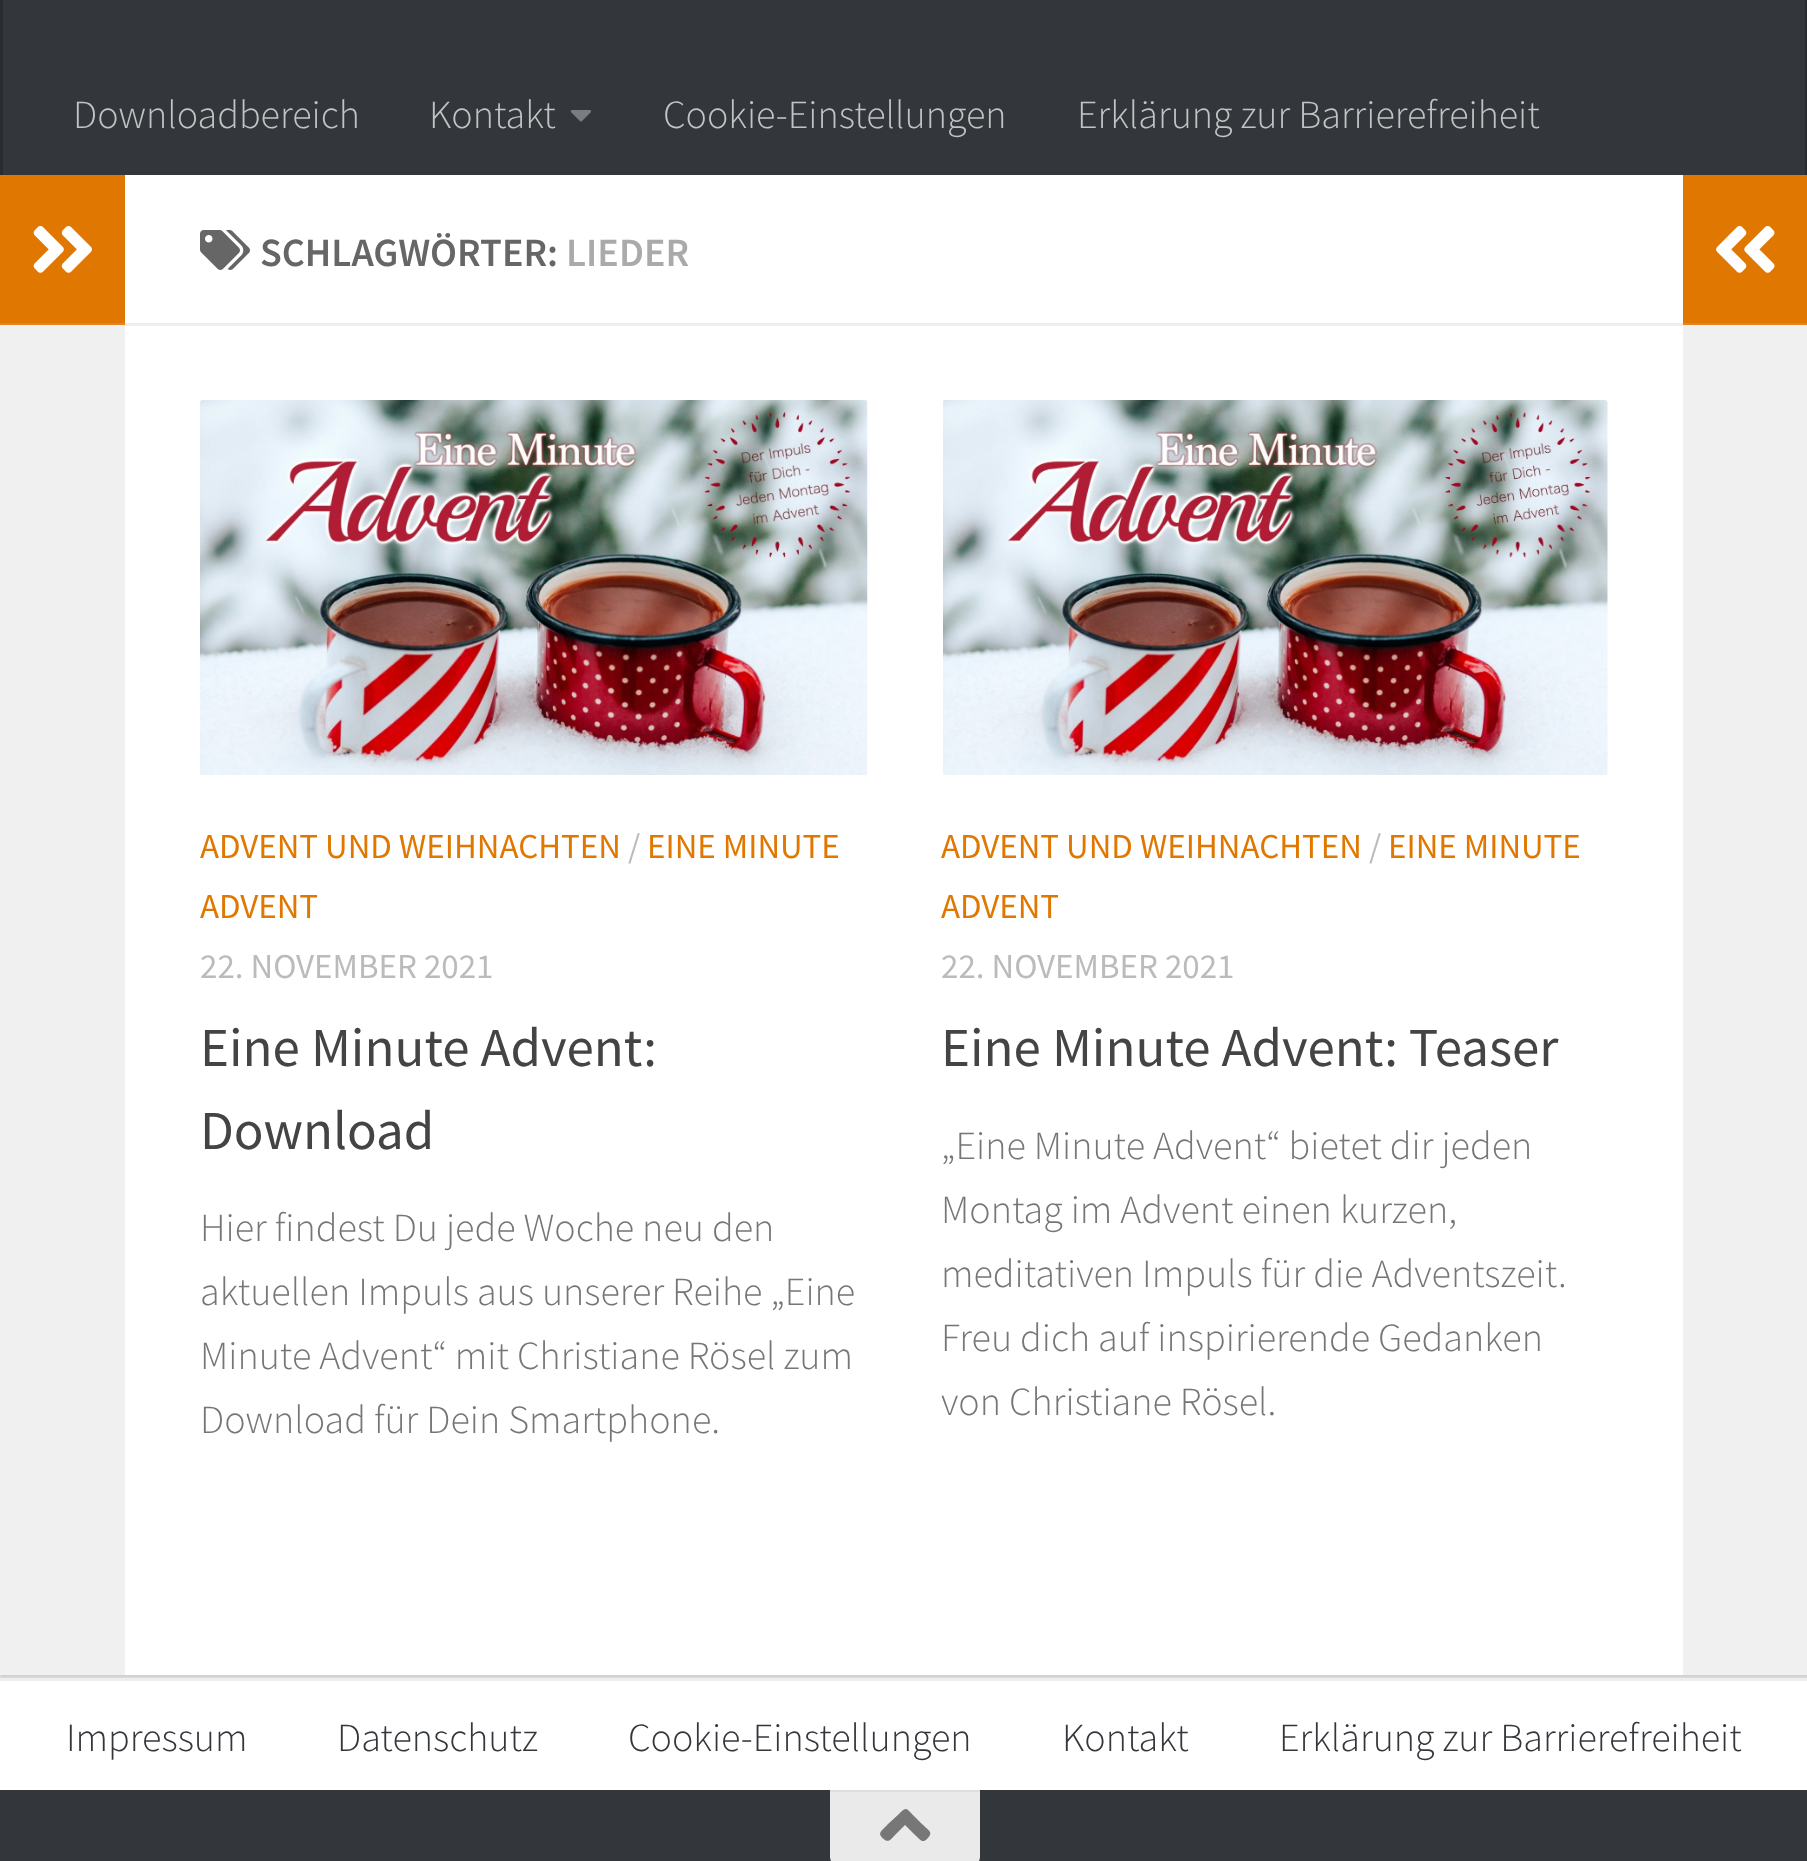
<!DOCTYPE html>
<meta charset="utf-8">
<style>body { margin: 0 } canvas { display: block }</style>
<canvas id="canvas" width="1807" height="1861"></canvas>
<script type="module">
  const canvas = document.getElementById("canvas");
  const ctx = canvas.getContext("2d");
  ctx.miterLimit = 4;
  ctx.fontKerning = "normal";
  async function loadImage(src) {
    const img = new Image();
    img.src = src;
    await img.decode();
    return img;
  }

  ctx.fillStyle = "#eaeaea";
  ctx.fillRect(0, 0, 1807, 1861);
  ctx.fillStyle = "rgba(0, 0, 0, 0.1)";
  ctx.filter = "blur(1px)";
  ctx.beginPath();
  ctx.rect(0, 178, 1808, 1500);
  ctx.fill();
  ctx.filter = "none";
  ctx.fillStyle = "#33363b";
  ctx.fillRect(3, 0, 1802, 175);
  ctx.fillStyle = "#292b2f";
  ctx.fillRect(1805, 0, 2, 175);
  ctx.fillRect(0, 0, 3, 175);
  ctx.font = "300 40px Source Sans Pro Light";
  ctx.fillStyle = "#c2c3c4";
  ctx.fillText("Downloadbereich", 73, 128);
  ctx.fillText("Kontakt", 429, 128);
  ctx.drawImage(await loadImage("img1.png"), 570, 110, 21, 12);
  ctx.fillText("Cookie-Einstellungen", 663, 128);
  ctx.fillText("Erklärung zur Barrierefreiheit", 1077, 128);
  ctx.fillStyle = "#ffffff";
  ctx.fillRect(125, 175, 1558, 1500);
  ctx.fillStyle = "#f0f0f0";
  ctx.fillRect(0, 326, 125, 1349);
  ctx.fillStyle = "#f2f2f2";
  ctx.fillRect(0, 325, 125, 1);
  ctx.fillStyle = "#e07700";
  ctx.fillRect(0, 175, 125, 148);
  ctx.fillStyle = "#e3851a";
  ctx.fillRect(0, 323, 125, 2);
  ctx.drawImage(await loadImage("img2.png"), 33, 226, 59, 47);
  ctx.fillStyle = "#eeeeee";
  ctx.fillRect(125, 323, 1558, 3);
  ctx.drawImage(await loadImage("img3.png"), 200, 230, 50, 40);
  ctx.font = "600 40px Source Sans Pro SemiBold";
  ctx.fillStyle = "#666666";
  ctx.fillText("SCHLAGWÖRTER:", 260, 266);
  ctx.fillStyle = "#aaaaaa";
  ctx.fillText("LIEDER", 566, 266);
  ctx.drawImage(await loadImage("img4.png"), 200, 400, 668, 375);
  ctx.font = "35px Source Sans Pro";
  ctx.fillStyle = "#e07700";
  ctx.fillText("ADVENT UND WEIHNACHTEN", 200, 858);
  ctx.fillStyle = "#bbbbbb";
  ctx.fillText("/", 628, 858);
  ctx.fillStyle = "#e07700";
  ctx.fillText("EINE MINUTE", 647, 858);
  ctx.fillText("ADVENT", 200, 918);
  ctx.fillStyle = "#bbbbbb";
  ctx.fillText("22. NOVEMBER 2021", 200, 978);
  ctx.font = "55px Source Sans Pro";
  ctx.fillStyle = "#444444";
  ctx.fillText("Eine Minute Advent:", 200, 1066);
  ctx.fillText("Download", 200, 1149);
  ctx.font = "300 40px Source Sans Pro Light";
  ctx.fillStyle = "#767676";
  ctx.fillText("Hier findest Du jede Woche neu den", 200, 1241);
  ctx.fillText("aktuellen Impuls aus unserer Reihe „Eine", 200, 1305);
  ctx.fillText("Minute Advent“ mit Christiane Rösel zum", 200, 1369);
  ctx.fillText("Download für Dein Smartphone.", 200, 1433);
  ctx.drawImage(await loadImage("img5.png"), 943, 400, 665, 375);
  ctx.font = "35px Source Sans Pro";
  ctx.fillStyle = "#e07700";
  ctx.fillText("ADVENT UND WEIHNACHTEN", 941, 858);
  ctx.fillStyle = "#bbbbbb";
  ctx.fillText("/", 1369, 858);
  ctx.fillStyle = "#e07700";
  ctx.fillText("EINE MINUTE", 1388, 858);
  ctx.fillText("ADVENT", 941, 918);
  ctx.fillStyle = "#bbbbbb";
  ctx.fillText("22. NOVEMBER 2021", 941, 978);
  ctx.font = "55px Source Sans Pro";
  ctx.fillStyle = "#444444";
  ctx.fillText("Eine Minute Advent: Teaser", 941, 1066);
  ctx.font = "300 40px Source Sans Pro Light";
  ctx.fillStyle = "#767676";
  ctx.fillText("„Eine Minute Advent“ bietet dir jeden", 941, 1159);
  ctx.fillText("Montag im Advent einen kurzen,", 941, 1223);
  ctx.fillText("meditativen Impuls für die Adventszeit.", 941, 1287);
  ctx.fillText("Freu dich auf inspirierende Gedanken", 941, 1351);
  ctx.fillText("von Christiane Rösel.", 941, 1415);
  ctx.fillStyle = "#e07700";
  ctx.fillRect(1683, 175, 124, 148);
  ctx.fillStyle = "#e3851a";
  ctx.fillRect(1683, 323, 124, 2);
  ctx.drawImage(await loadImage("img6.png"), 1716, 226, 59, 47);
  ctx.fillStyle = "#f0f0f0";
  ctx.fillRect(1683, 326, 124, 1349);
  ctx.fillStyle = "#f2f2f2";
  ctx.fillRect(1683, 325, 124, 1);
  ctx.fillStyle = "#ffffff";
  ctx.fillRect(0, 1681, 1807, 109);
  ctx.fillStyle = "#eeeeee";
  ctx.fillRect(0, 1678, 1807, 3);
  ctx.fillStyle = "#33363b";
  ctx.fillText("Impressum", 66, 1751);
  ctx.fillText("Datenschutz", 337, 1751);
  ctx.fillText("Cookie-Einstellungen", 628, 1751);
  ctx.fillText("Kontakt", 1062, 1751);
  ctx.fillText("Erklärung zur Barrierefreiheit", 1279, 1751);
  ctx.fillRect(0, 1790, 1807, 71);
  ctx.fillStyle = "#eaeaea";
  ctx.beginPath();
  ctx.moveTo(830, 1790);
  ctx.lineTo(980, 1790);
  ctx.lineTo(980, 1857);
  ctx.bezierCurveTo(980, 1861.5, 976.5, 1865, 972, 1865);
  ctx.lineTo(838, 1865);
  ctx.bezierCurveTo(833.5, 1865, 830, 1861.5, 830, 1857);
  ctx.closePath();
  ctx.fill();
  ctx.fillStyle = "#dedede";
  ctx.fillRect(830, 1790, 150, 2);
  ctx.fillStyle = "#777777";
  ctx.beginPath();
  ctx.moveTo(908, 1810);
  ctx.lineTo(922, 1824);
  ctx.bezierCurveTo(929, 1831, 934, 1832, 927, 1839);
  ctx.bezierCurveTo(922, 1844, 920, 1839, 915, 1835);
  ctx.lineTo(905, 1825);
  ctx.lineTo(895, 1835);
  ctx.bezierCurveTo(893, 1837, 889, 1843, 885, 1840);
  ctx.bezierCurveTo(876, 1833, 881, 1832, 888, 1824);
  ctx.lineTo(899, 1814);
  ctx.bezierCurveTo(901, 1812, 905, 1807, 908, 1810);
  ctx.closePath();
  ctx.fill();
</script>
